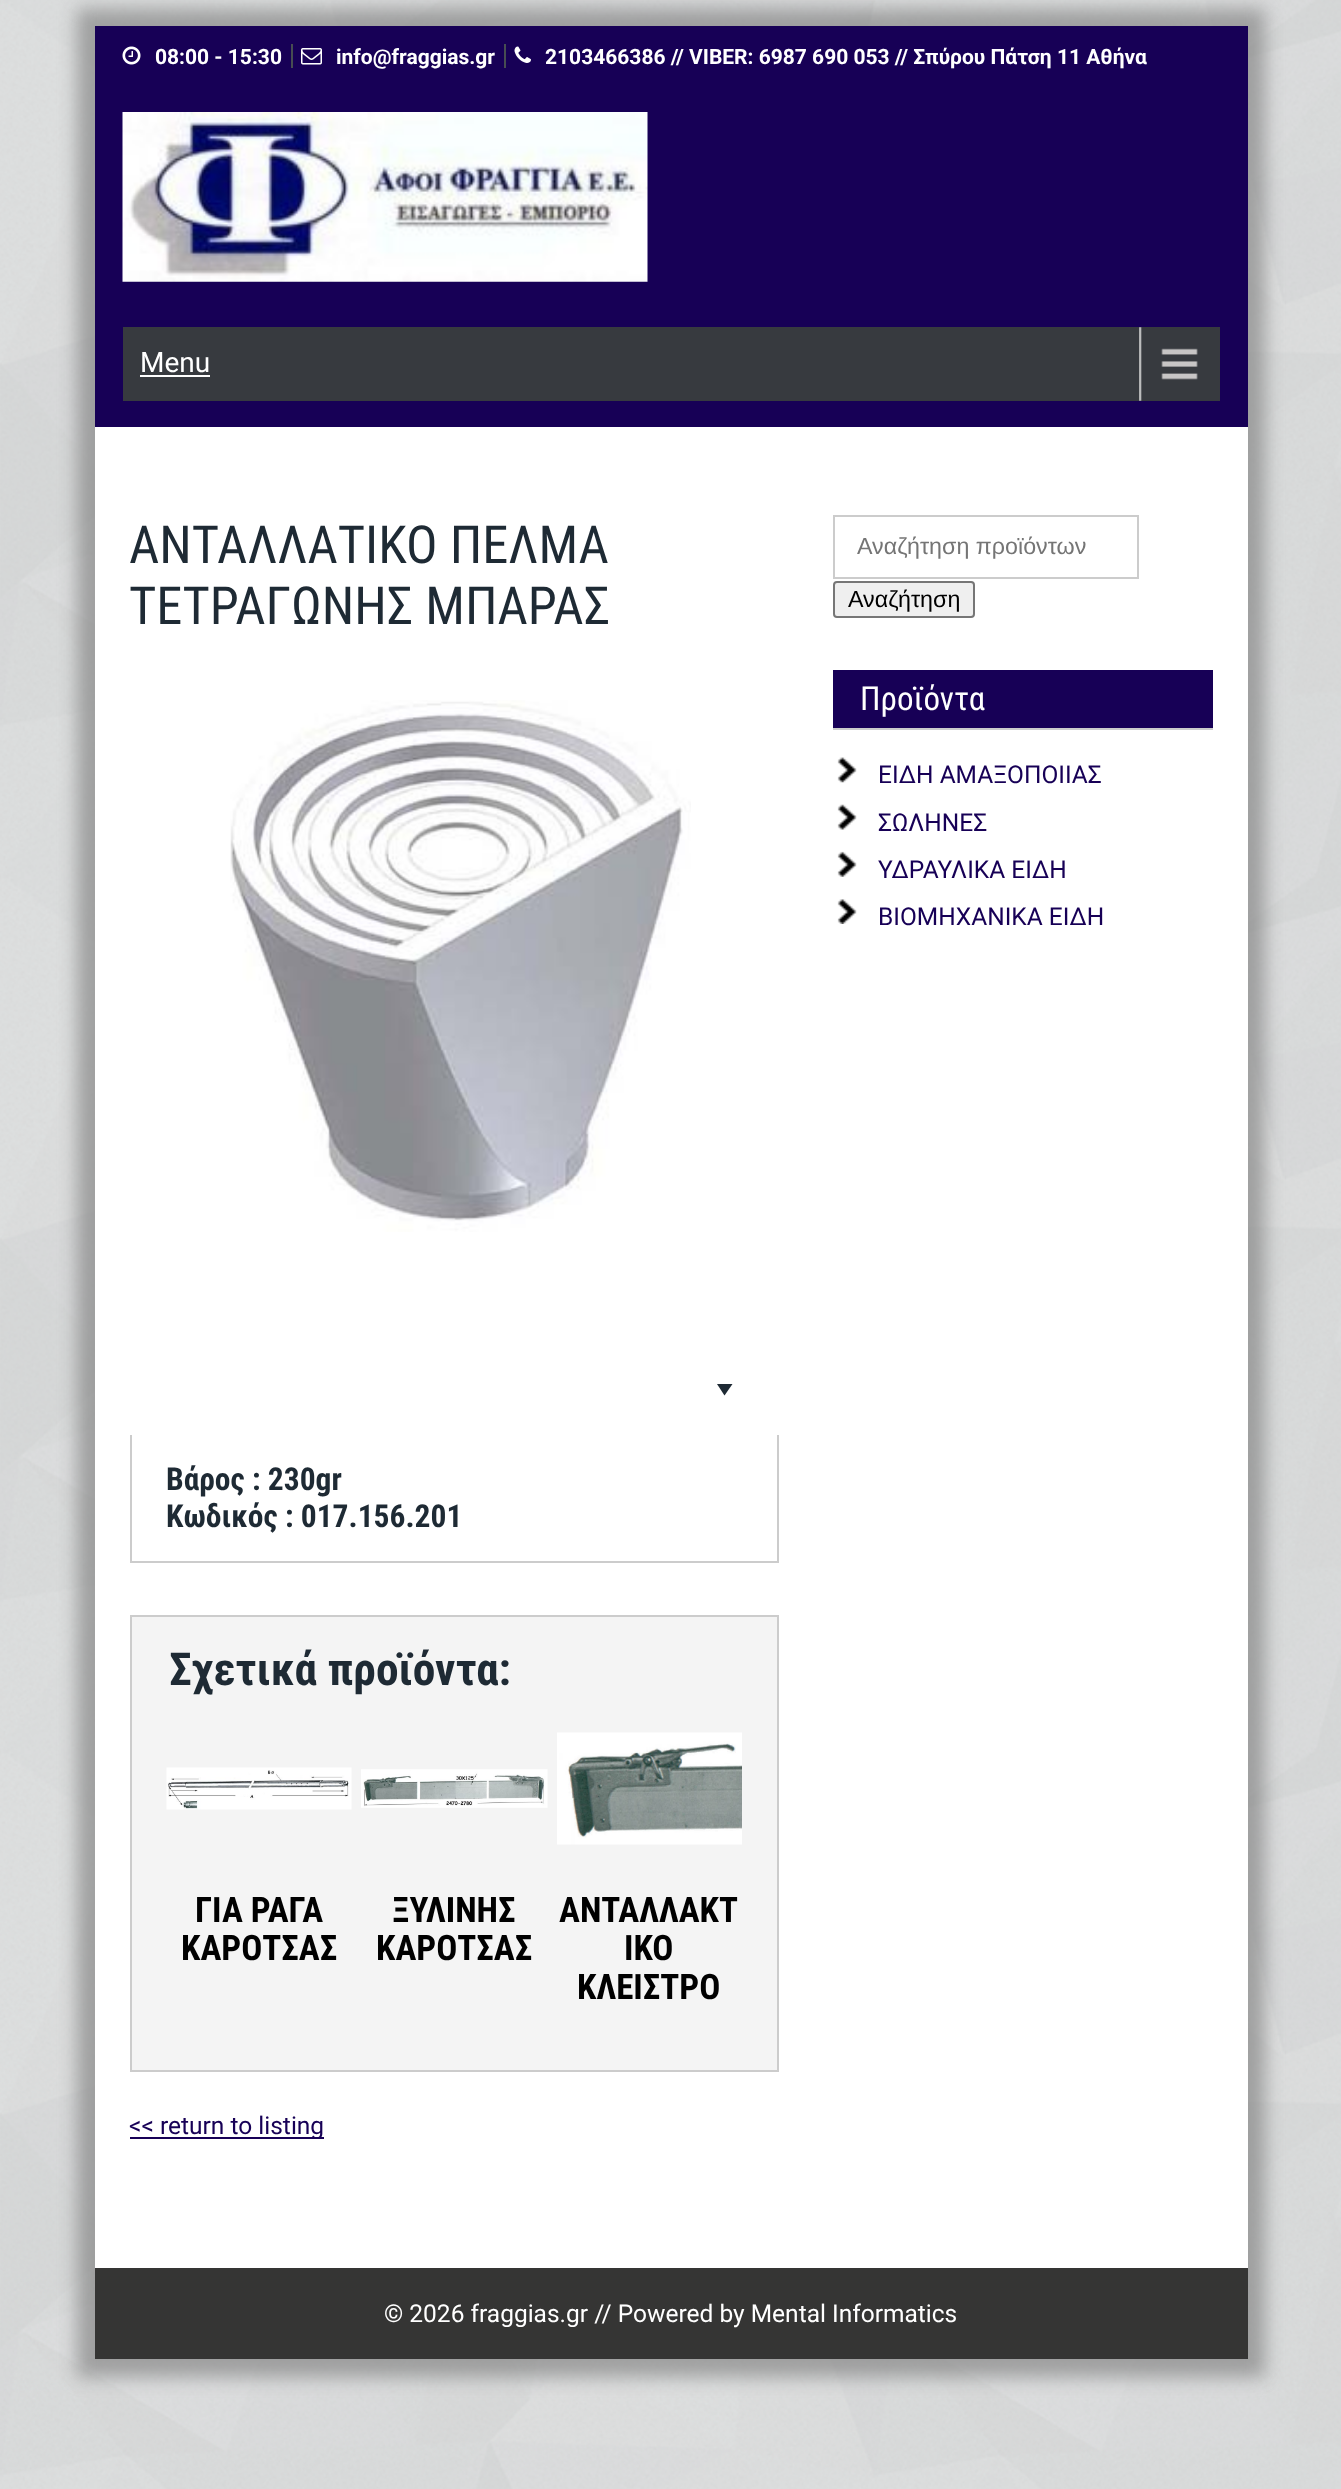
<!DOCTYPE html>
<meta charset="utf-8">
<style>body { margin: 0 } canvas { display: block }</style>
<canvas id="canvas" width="1341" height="2489"></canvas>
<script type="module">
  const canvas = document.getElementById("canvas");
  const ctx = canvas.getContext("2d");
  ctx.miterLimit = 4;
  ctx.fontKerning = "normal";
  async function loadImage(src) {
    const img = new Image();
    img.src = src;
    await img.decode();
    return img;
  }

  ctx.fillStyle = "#ffffff";
  ctx.fillRect(0, 0, 1341, 2489);
  ctx.drawImage(await loadImage("img1.png"), 0, 0, 1341, 2489);
  ctx.fillStyle = "rgba(120, 120, 120, 0.6)";
  ctx.filter = "blur(9px)";
  ctx.beginPath();
  ctx.rect(77, 9, 1188, 2368);
  ctx.fill();
  ctx.filter = "none";
  ctx.fillStyle = "#ffffff";
  ctx.fillRect(95, 427, 1153, 1841);
  ctx.fillStyle = "#170056";
  ctx.fillRect(95, 26, 1153, 401);
  ctx.fillStyle = "#474d52";
  ctx.fillRect(291, 44, 2, 24);
  ctx.drawImage(await loadImage("img2.png"), 122, 46, 19, 19);
  ctx.font = "bold 21px Roboto";
  ctx.fillStyle = "#ffffff";
  ctx.fillText("08:00 - 15:30", 155, 64);
  ctx.fillStyle = "#474d52";
  ctx.fillRect(504, 44, 2, 24);
  ctx.drawImage(await loadImage("img3.png"), 301, 48, 21, 17);
  ctx.fillStyle = "#ffffff";
  ctx.fillText("info@fraggias.gr", 336, 64);
  ctx.drawImage(await loadImage("img4.png"), 514, 46, 17, 17);
  ctx.fillText("2103466386 // VIBER: 6987 690 053 // Σπύρου Πάτση 11 Αθήνα", 545, 64);
  ctx.drawImage(await loadImage("img5.png"), 122, 112, 526, 170);
  ctx.fillStyle = "#373a3f";
  ctx.fillRect(123, 327, 1097, 74);
  ctx.drawImage(await loadImage("img6.png"), 1139, 327, 59, 74);
  ctx.font = "28px Roboto";
  ctx.fillStyle = "#ffffff";
  ctx.fillText("Menu", 140, 372);
  ctx.fillRect(140, 375, 70, 2);
  ctx.font = "52.5px Roboto Condensed";
  ctx.fillStyle = "#1e2a34";
  ctx.fillText("ΑΝΤΑΛΛΑΤΙΚΟ ΠΕΛΜΑ", 129, 563);
  ctx.fillText("ΤΕΤΡΑΓΩΝΗΣ ΜΠΑΡΑΣ", 129, 624);
  ctx.drawImage(await loadImage("img7.png"), 230, 700, 461, 532);
  ctx.beginPath();
  ctx.moveTo(732.5, 1384);
  ctx.lineTo(724.5, 1395.5);
  ctx.lineTo(717, 1384);
  ctx.closePath();
  ctx.fill();
  ctx.fillStyle = "#cccccc";
  ctx.fillRect(777, 1435, 2, 128);
  ctx.fillRect(130, 1561, 649, 2);
  ctx.fillRect(130, 1435, 2, 128);
  ctx.font = "bold 31.5px Roboto Condensed";
  ctx.fillStyle = "#1e2a34";
  ctx.fillText("Βάρος : 230gr", 166, 1490);
  ctx.fillText("Κωδικός : 017.156.201", 166, 1527);
  ctx.fillStyle = "#f4f4f4";
  ctx.beginPath();
  ctx.rect(131, 1616, 647, 455);
  ctx.fill();
  ctx.strokeStyle = "#cccccc";
  ctx.lineWidth = 2;
  ctx.stroke();
  ctx.font = "bold 45.5px Roboto Condensed";
  ctx.fillStyle = "#1e2a34";
  ctx.fillText("Σχετικά προϊόντα:", 169, 1685);
  ctx.drawImage(await loadImage("img8.png"), 166, 1767, 186, 43);
  ctx.font = "bold 35px Roboto Condensed";
  ctx.fillStyle = "#000000";
  ctx.fillText("ΓΙΑ ΡΑΓΑ", 195, 1922);
  ctx.fillText("ΚΑΡΟΤΣΑΣ", 181, 1960);
  ctx.drawImage(await loadImage("img9.png"), 361, 1769, 187, 39);
  ctx.fillText("ΞΥΛΙΝΗΣ", 392, 1922);
  ctx.fillText("ΚΑΡΟΤΣΑΣ", 376, 1960);
  ctx.drawImage(await loadImage("img10.png"), 557, 1732, 185, 113);
  ctx.fillText("ΑΝΤΑΛΛΑΚΤ", 559, 1922);
  ctx.fillText("ΙΚΟ", 624, 1960);
  ctx.fillText("ΚΛΕΙΣΤΡΟ", 577, 1999);
  ctx.fillStyle = "#170056";
  ctx.fillRect(130, 2137, 194, 2);
  ctx.font = "24.5px Roboto";
  ctx.fillText("<< return to listing", 129, 2134);
  ctx.strokeRect(834, 516, 304, 62);
  ctx.font = "23.25px Liberation Sans";
  ctx.fillStyle = "#757575";
  ctx.fillText("Αναζήτηση προϊόντων", 857, 554);
  ctx.fillStyle = "#efefef";
  ctx.beginPath();
  ctx.roundRect(834, 582, 140, 35, 3);
  ctx.fill();
  ctx.strokeStyle = "#767676";
  ctx.stroke();
  ctx.fillStyle = "#000000";
  ctx.fillText("Αναζήτηση", 848, 607);
  ctx.fillStyle = "#170056";
  ctx.fillRect(833, 670, 380, 58);
  ctx.fillStyle = "#cccccc";
  ctx.fillRect(833, 728, 380, 2);
  ctx.font = "33px Roboto Condensed";
  ctx.fillStyle = "#ffffff";
  ctx.fillText("Προϊόντα", 860, 710);
  ctx.drawImage(await loadImage("img11.png"), 837, 757, 20, 26);
  ctx.font = "24.5px Roboto";
  ctx.fillStyle = "#170056";
  ctx.fillText("ΕΙΔΗ ΑΜΑΞΟΠΟΙΙΑΣ", 878, 783);
  ctx.drawImage(await loadImage("img12.png"), 837, 804, 20, 26);
  ctx.fillText("ΣΩΛΗΝΕΣ", 878, 831);
  ctx.drawImage(await loadImage("img13.png"), 837, 851, 20, 26);
  ctx.fillText("ΥΔΡΑΥΛΙΚΑ ΕΙΔΗ", 878, 878);
  ctx.drawImage(await loadImage("img14.png"), 837, 899, 20, 25);
  ctx.fillText("ΒΙΟΜΗΧΑΝΙΚΑ ΕΙΔΗ", 878, 925);
  ctx.fillStyle = "#353534";
  ctx.fillRect(95, 2268, 1153, 91);
  ctx.fillStyle = "#ffffff";
  ctx.fillText("© 2026 fraggias.gr // Powered by Mental Informatics", 384, 2322);
</script>
